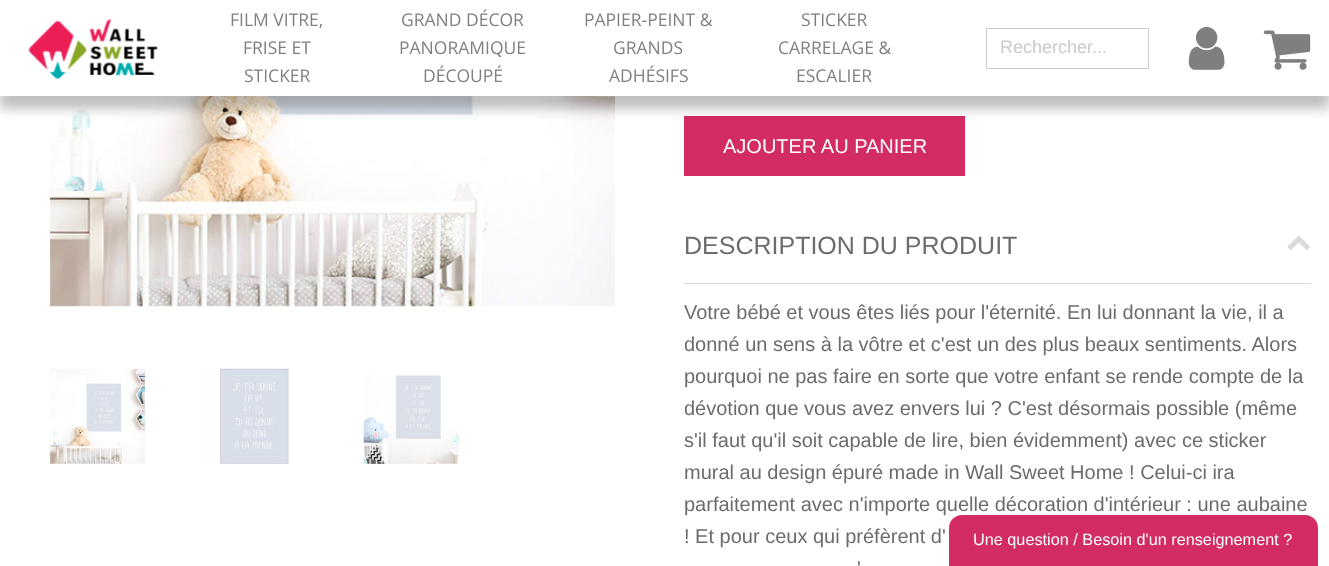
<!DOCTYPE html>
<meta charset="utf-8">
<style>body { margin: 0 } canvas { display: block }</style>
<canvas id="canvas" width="1329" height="566"></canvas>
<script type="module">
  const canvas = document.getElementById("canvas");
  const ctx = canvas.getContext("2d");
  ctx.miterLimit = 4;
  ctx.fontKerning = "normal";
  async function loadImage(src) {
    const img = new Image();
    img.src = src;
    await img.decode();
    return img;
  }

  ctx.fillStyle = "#ffffff";
  ctx.fillRect(0, 0, 1329, 566);
  ctx.drawImage(await loadImage("img4.png"), 50, 96, 565, 211);
  ctx.fillStyle = "#d32c63";
  ctx.fillRect(684, 116, 281, 60);
  ctx.fillStyle = "rgba(0, 0, 0, 0.25)";
  ctx.filter = "blur(6px)";
  ctx.beginPath();
  ctx.rect(0, 13, 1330, 96);
  ctx.fill();
  ctx.filter = "none";
  ctx.fillStyle = "#ffffff";
  ctx.fillRect(0, 3, 1329, 93);
  ctx.drawImage(await loadImage("img1.png"), 28, 19, 130, 61);
  ctx.font = "17.5px Open Sans";
  ctx.fillStyle = "#808080";
  ctx.fillText("FILM VITRE,", 230, 26);
  ctx.fillText("FRISE ET", 243, 54);
  ctx.fillText("STICKER", 244, 82);
  ctx.fillText("GRAND DÉCOR", 401, 26);
  ctx.fillText("PANORAMIQUE", 399, 54);
  ctx.fillText("DÉCOUPÉ", 423, 82);
  ctx.fillText("PAPIER-PEINT &", 584, 26);
  ctx.fillText("GRANDS", 613, 54);
  ctx.fillText("ADHÉSIFS", 609, 82);
  ctx.fillText("STICKER", 801, 26);
  ctx.fillText("CARRELAGE &", 778, 54);
  ctx.fillText("ESCALIER", 796, 82);
  ctx.strokeStyle = "#cccccc";
  ctx.strokeRect(986.5, 28.5, 162, 40);
  ctx.font = "18px Liberation Sans";
  ctx.fillStyle = "#cacaca";
  ctx.fillText("Rechercher...", 1000, 53);
  ctx.drawImage(await loadImage("img2.png"), 1188, 27, 37, 43);
  ctx.drawImage(await loadImage("img3.png"), 1263, 30, 48, 40);
  ctx.drawImage(await loadImage("img5.png"), 50, 368, 95, 96);
  ctx.drawImage(await loadImage("img6.png"), 220, 368, 69, 96);
  ctx.drawImage(await loadImage("img7.png"), 363, 375, 96, 89);
  ctx.font = "20px Liberation Sans";
  ctx.fillStyle = "#ffffff";
  ctx.fillText("AJOUTER AU PANIER", 723, 153);
  ctx.fillStyle = "#dadada";
  ctx.fillRect(684, 283, 627, 1);
  ctx.font = "25px Liberation Sans";
  ctx.fillStyle = "#6c6c6c";
  ctx.fillText("DESCRIPTION DU PRODUIT", 684, 254);
  ctx.drawImage(await loadImage("img8.png"), 1287, 235, 23, 15);
  ctx.font = "20px Liberation Sans";
  ctx.fillText("Votre bébé et vous êtes liés pour l'éternité. En lui donnant la vie, il a", 684, 319);
  ctx.fillText("donné un sens à la vôtre et c'est un des plus beaux sentiments. Alors", 684, 351);
  ctx.fillText("pourquoi ne pas faire en sorte que votre enfant se rende compte de la", 684, 383);
  ctx.fillText("dévotion que vous avez envers lui ? C'est désormais possible (même", 684, 415);
  ctx.fillText("s'il faut qu'il soit capable de lire, bien évidemment) avec ce sticker", 684, 447);
  ctx.fillText("mural au design épuré made in Wall Sweet Home ! Celui-ci ira", 684, 479);
  ctx.fillText("parfaitement avec n'importe quelle décoration d'intérieur : une aubaine", 684, 511);
  ctx.fillText("! Et pour ceux qui préfèrent d'", 684, 543);
  ctx.fillText("'", 857, 575);
  ctx.fillStyle = "#d32c63";
  ctx.beginPath();
  ctx.roundRect(949, 515, 369, 51, [13, 13, 0, 0]);
  ctx.fill();
  ctx.font = "16.25px Liberation Sans";
  ctx.fillStyle = "#ffffff";
  ctx.fillText("Une question / Besoin d'un renseignement ?", 973, 545);
</script>
